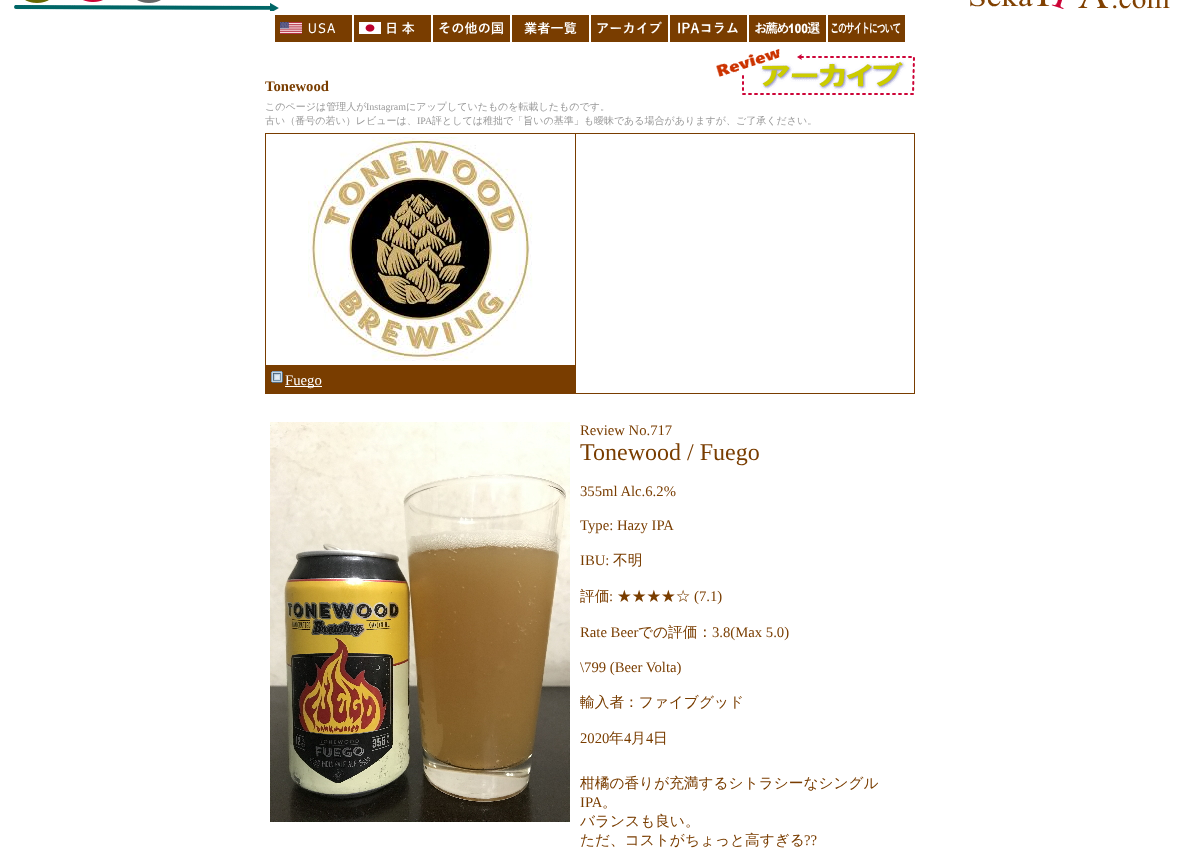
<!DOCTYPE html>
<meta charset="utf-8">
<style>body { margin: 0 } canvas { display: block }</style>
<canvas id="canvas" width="1180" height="854"></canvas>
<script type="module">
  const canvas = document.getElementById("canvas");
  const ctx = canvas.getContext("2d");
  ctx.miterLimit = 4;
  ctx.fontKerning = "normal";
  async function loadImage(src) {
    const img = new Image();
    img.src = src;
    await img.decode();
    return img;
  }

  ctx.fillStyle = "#ffffff";
  ctx.fillRect(0, 0, 1180, 854);
  ctx.drawImage(await loadImage("img1.png"), 14, 0, 265, 11);
  ctx.drawImage(await loadImage("img2.png"), 970, 0, 200, 9);
  ctx.fillStyle = "#793d00";
  ctx.fillRect(275, 15, 77, 27);
  ctx.drawImage(await loadImage("img3.png"), 280, 22, 56, 12);
  ctx.fillRect(354, 15, 77, 27);
  ctx.drawImage(await loadImage("img4.png"), 359, 21, 56, 14);
  ctx.fillRect(433, 15, 77, 27);
  ctx.drawImage(await loadImage("img5.png"), 439, 22, 64, 13);
  ctx.fillRect(512, 15, 77, 27);
  ctx.drawImage(await loadImage("img6.png"), 524, 21, 53, 14);
  ctx.fillRect(591, 15, 77, 27);
  ctx.drawImage(await loadImage("img7.png"), 597, 21, 65, 13);
  ctx.fillRect(670, 15, 77, 27);
  ctx.drawImage(await loadImage("img8.png"), 678, 22, 60, 12);
  ctx.fillRect(749, 15, 77, 27);
  ctx.drawImage(await loadImage("img9.png"), 755, 21, 65, 13);
  ctx.fillRect(828, 15, 77, 27);
  ctx.drawImage(await loadImage("img10.png"), 831, 22, 70, 12);
  ctx.font = "bold 14.7px Liberation Serif";
  ctx.fillText("Tonewood", 265, 91);
  ctx.drawImage(await loadImage("img11.png"), 716, 49, 199, 46);
  ctx.font = "500 10px WenQuanYi Zen Hei";
  ctx.fillStyle = "#999999";
  ctx.fillText("このページは管理人が", 265, 110);
  ctx.font = "10px Liberation Serif";
  ctx.fillText("Instagram", 366, 110);
  ctx.font = "500 10px WenQuanYi Zen Hei";
  ctx.fillText("にアップしていたものを転載したものです。", 406, 110);
  ctx.fillText("古い（番号の若い）レビューは、", 265, 124);
  ctx.font = "10px Liberation Serif";
  ctx.fillText("IPA", 417, 124);
  ctx.font = "500 10px WenQuanYi Zen Hei";
  ctx.fillText("評としては稚拙で「旨いの基準」も曖昧である場合がありますが、ご了承ください。", 432, 124);
  ctx.fillStyle = "#793d00";
  ctx.fillRect(265, 133, 650, 261);
  ctx.fillStyle = "#ffffff";
  ctx.fillRect(266, 134, 309, 231);
  ctx.drawImage(await loadImage("img12.png"), 308, 137, 225, 224);
  ctx.fillRect(576, 134, 338, 259);
  ctx.drawImage(await loadImage("img13.png"), 271, 371, 12, 12);
  ctx.fillRect(285, 386, 37, 1);
  ctx.font = "14.7px Liberation Serif";
  ctx.fillText("Fuego", 285, 385);
  ctx.drawImage(await loadImage("img14.png"), 270, 422, 300, 400);
  ctx.fillStyle = "#793d00";
  ctx.fillText("Review No.717", 580, 435);
  ctx.font = "24px Liberation Serif";
  ctx.fillText("Tonewood / Fuego", 580, 460);
  ctx.font = "14.7px Liberation Serif";
  ctx.fillText("355ml Alc.6.2%", 580, 496);
  ctx.fillText("Type: Hazy IPA", 580, 530);
  ctx.fillText("IBU:", 580, 565);
  ctx.font = "500 14.7px WenQuanYi Zen Hei";
  ctx.fillText("不明", 613, 565);
  ctx.fillText("評価", 580, 601);
  ctx.font = "14.7px Liberation Serif";
  ctx.fillText(":", 609, 601);
  ctx.font = "500 14.7px WenQuanYi Zen Hei";
  ctx.fillText("★★★★☆", 617, 601);
  ctx.font = "14.7px Liberation Serif";
  ctx.fillText("(7.1)", 694, 601);
  ctx.fillText("Rate Beer", 580, 637);
  ctx.font = "500 14.7px WenQuanYi Zen Hei";
  ctx.fillText("での評価：", 638, 637);
  ctx.font = "14.7px Liberation Serif";
  ctx.fillText("3.8(Max 5.0)", 712, 637);
  ctx.fillText("\\799 (Beer Volta)", 580, 672);
  ctx.font = "500 14.7px WenQuanYi Zen Hei";
  ctx.fillText("輸入者：ファイブグッド", 580, 707);
  ctx.font = "14.7px Liberation Serif";
  ctx.fillText("2020", 580, 743);
  ctx.font = "500 14.7px WenQuanYi Zen Hei";
  ctx.fillText("年", 609, 743);
  ctx.font = "14.7px Liberation Serif";
  ctx.fillText("4", 624, 743);
  ctx.font = "500 14.7px WenQuanYi Zen Hei";
  ctx.fillText("月", 631, 743);
  ctx.font = "14.7px Liberation Serif";
  ctx.fillText("4", 646, 743);
  ctx.font = "500 14.7px WenQuanYi Zen Hei";
  ctx.fillText("日", 653, 743);
  ctx.fillText("柑橘の香りが充満するシトラシーなシングル", 580, 788);
  ctx.font = "14.7px Liberation Serif";
  ctx.fillText("IPA", 580, 807);
  ctx.font = "500 14.7px WenQuanYi Zen Hei";
  ctx.fillText("。", 602, 807);
  ctx.fillText("バランスも良い。", 580, 826);
  ctx.fillText("ただ、コストがちょっと高すぎる", 580, 845);
  ctx.font = "14.7px Liberation Serif";
  ctx.fillText("??", 804, 845);
</script>
